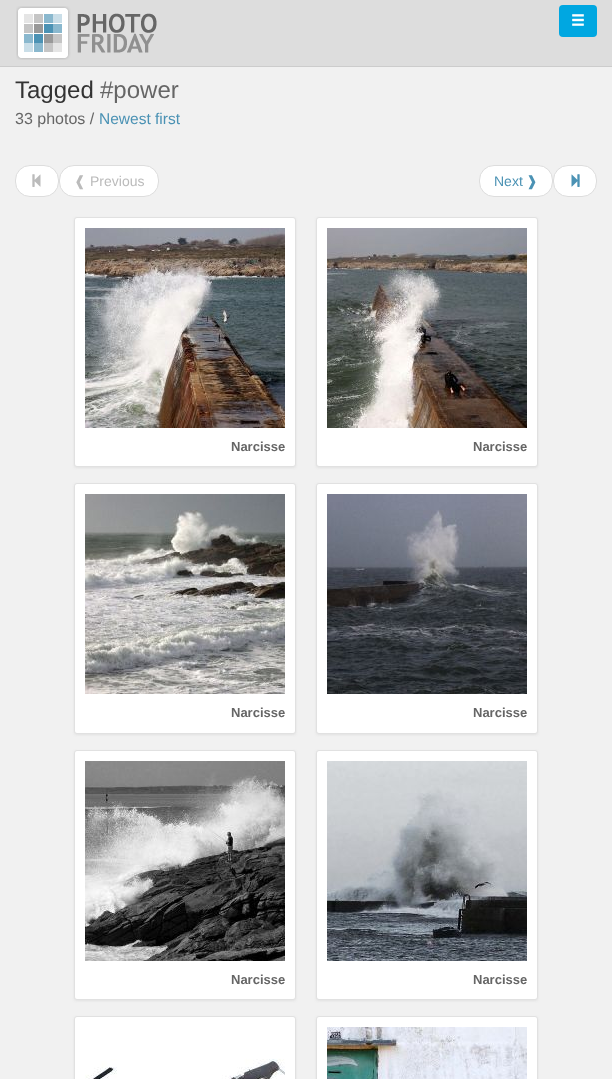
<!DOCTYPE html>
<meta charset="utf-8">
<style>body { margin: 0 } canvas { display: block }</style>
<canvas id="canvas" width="612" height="1079"></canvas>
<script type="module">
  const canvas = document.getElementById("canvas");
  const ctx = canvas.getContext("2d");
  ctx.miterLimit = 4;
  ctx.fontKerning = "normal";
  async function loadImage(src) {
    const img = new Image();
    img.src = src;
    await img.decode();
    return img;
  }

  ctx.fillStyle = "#f1f1f1";
  ctx.fillRect(0, 0, 612, 1079);
  ctx.fillStyle = "#dddddd";
  ctx.fillRect(0, 0, 612, 66);
  ctx.fillStyle = "#cccccc";
  ctx.fillRect(0, 66, 612, 1);
  ctx.drawImage(await loadImage("img1.png"), 16, 6, 141, 54);
  ctx.fillStyle = "#00a7e1";
  ctx.beginPath();
  ctx.roundRect(559, 5, 38, 32, 4);
  ctx.fill();
  ctx.drawImage(await loadImage("img2.png"), 572, 14, 12, 12);
  ctx.font = "24px Liberation Sans";
  ctx.fillStyle = "#333333";
  ctx.fillText("Tagged", 15, 98);
  ctx.fillStyle = "#666666";
  ctx.fillText("#power", 100, 98);
  ctx.font = "16px Liberation Sans";
  ctx.fillText("33 photos /", 15, 124);
  ctx.font = "15.5px Liberation Sans";
  ctx.fillStyle = "#4b92b4";
  ctx.fillText("Newest first", 99, 124);
  ctx.fillStyle = "#ffffff";
  ctx.beginPath();
  ctx.roundRect(15.5, 165.5, 43, 31, 14.5);
  ctx.fill();
  ctx.strokeStyle = "#dddddd";
  ctx.stroke();
  ctx.drawImage(await loadImage("img3.png"), 32, 174, 9, 13);
  ctx.beginPath();
  ctx.roundRect(59.5, 165.5, 99, 31, 14.5);
  ctx.fill();
  ctx.stroke();
  ctx.font = "14px DejaVu Sans";
  ctx.fillStyle = "#bbbbbb";
  ctx.fillText("❰", 74, 186);
  ctx.font = "14px Liberation Sans";
  ctx.fillText("Previous", 90, 186);
  ctx.fillStyle = "#ffffff";
  ctx.beginPath();
  ctx.roundRect(479.5, 165.5, 73, 31, 14.5);
  ctx.fill();
  ctx.stroke();
  ctx.fillStyle = "#4b92b4";
  ctx.fillText("Next", 494, 186);
  ctx.font = "14px DejaVu Sans";
  ctx.fillText("❱", 526, 186);
  ctx.fillStyle = "#ffffff";
  ctx.beginPath();
  ctx.roundRect(553.5, 165.5, 43, 31, 14.5);
  ctx.fill();
  ctx.stroke();
  ctx.drawImage(await loadImage("img4.png"), 571, 174, 9, 13);
  ctx.fillStyle = "#e1e1e1";
  ctx.filter = "blur(1px)";
  ctx.beginPath();
  ctx.roundRect(74, 218, 222, 250, 3);
  ctx.fill();
  ctx.filter = "none";
  ctx.fillStyle = "#ffffff";
  ctx.beginPath();
  ctx.roundRect(74.5, 217.5, 221, 249, 2.5);
  ctx.fill();
  ctx.strokeStyle = "#e1e1e1";
  ctx.stroke();
  ctx.drawImage(await loadImage("img5.png"), 85, 228, 200, 200);
  ctx.font = "bold 13px Liberation Sans";
  ctx.fillStyle = "#666666";
  ctx.fillText("Narcisse", 231, 451);
  ctx.fillStyle = "#e1e1e1";
  ctx.filter = "blur(1px)";
  ctx.beginPath();
  ctx.roundRect(316, 218, 222, 250, 3);
  ctx.fill();
  ctx.filter = "none";
  ctx.fillStyle = "#ffffff";
  ctx.beginPath();
  ctx.roundRect(316.5, 217.5, 221, 249, 2.5);
  ctx.fill();
  ctx.stroke();
  ctx.drawImage(await loadImage("img6.png"), 327, 228, 200, 200);
  ctx.fillStyle = "#666666";
  ctx.fillText("Narcisse", 473, 451);
  ctx.fillStyle = "#e1e1e1";
  ctx.filter = "blur(1px)";
  ctx.beginPath();
  ctx.roundRect(74, 484, 222, 251, 3);
  ctx.fill();
  ctx.filter = "none";
  ctx.fillStyle = "#ffffff";
  ctx.beginPath();
  ctx.roundRect(74.5, 483.5, 221, 250, 2.5);
  ctx.fill();
  ctx.stroke();
  ctx.drawImage(await loadImage("img7.png"), 85, 494, 200, 200);
  ctx.fillStyle = "#666666";
  ctx.fillText("Narcisse", 231, 717);
  ctx.fillStyle = "#e1e1e1";
  ctx.filter = "blur(1px)";
  ctx.beginPath();
  ctx.roundRect(316, 484, 222, 251, 3);
  ctx.fill();
  ctx.filter = "none";
  ctx.fillStyle = "#ffffff";
  ctx.beginPath();
  ctx.roundRect(316.5, 483.5, 221, 250, 2.5);
  ctx.fill();
  ctx.stroke();
  ctx.drawImage(await loadImage("img8.png"), 327, 494, 200, 200);
  ctx.fillStyle = "#666666";
  ctx.fillText("Narcisse", 473, 717);
  ctx.fillStyle = "#e1e1e1";
  ctx.filter = "blur(1px)";
  ctx.beginPath();
  ctx.roundRect(74, 751, 222, 250, 3);
  ctx.fill();
  ctx.filter = "none";
  ctx.fillStyle = "#ffffff";
  ctx.beginPath();
  ctx.roundRect(74.5, 750.5, 221, 249, 2.5);
  ctx.fill();
  ctx.stroke();
  ctx.drawImage(await loadImage("img9.png"), 85, 761, 200, 200);
  ctx.fillStyle = "#666666";
  ctx.fillText("Narcisse", 231, 984);
  ctx.fillStyle = "#e1e1e1";
  ctx.filter = "blur(1px)";
  ctx.beginPath();
  ctx.roundRect(316, 751, 222, 250, 3);
  ctx.fill();
  ctx.filter = "none";
  ctx.fillStyle = "#ffffff";
  ctx.beginPath();
  ctx.roundRect(316.5, 750.5, 221, 249, 2.5);
  ctx.fill();
  ctx.stroke();
  ctx.drawImage(await loadImage("img10.png"), 327, 761, 200, 200);
  ctx.fillStyle = "#666666";
  ctx.fillText("Narcisse", 473, 984);
  ctx.fillStyle = "#e1e1e1";
  ctx.filter = "blur(1px)";
  ctx.beginPath();
  ctx.roundRect(74, 1017, 222, 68, 3);
  ctx.fill();
  ctx.filter = "none";
  ctx.fillStyle = "#ffffff";
  ctx.beginPath();
  ctx.roundRect(74.5, 1016.5, 221, 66, 2.5);
  ctx.fill();
  ctx.stroke();
  ctx.drawImage(await loadImage("img11.png"), 85, 1027, 200, 52);
  ctx.fillStyle = "#e1e1e1";
  ctx.filter = "blur(1px)";
  ctx.beginPath();
  ctx.roundRect(316, 1017, 222, 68, 3);
  ctx.fill();
  ctx.filter = "none";
  ctx.fillStyle = "#ffffff";
  ctx.beginPath();
  ctx.roundRect(316.5, 1016.5, 221, 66, 2.5);
  ctx.fill();
  ctx.stroke();
  ctx.drawImage(await loadImage("img12.png"), 327, 1027, 200, 52);
</script>
